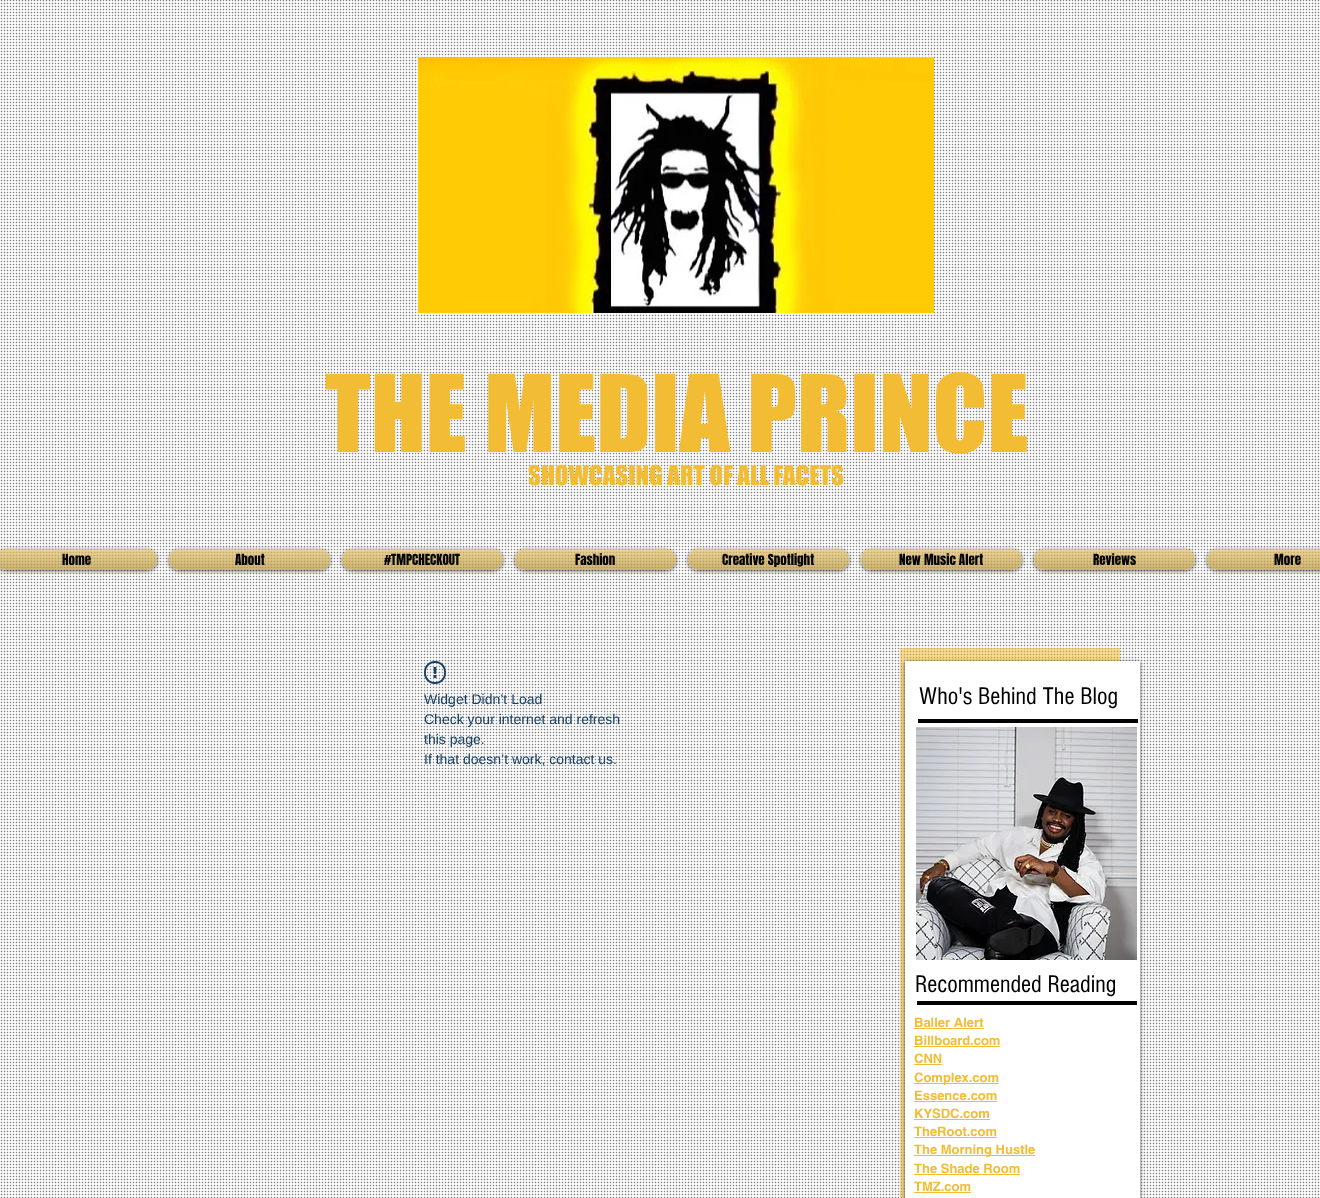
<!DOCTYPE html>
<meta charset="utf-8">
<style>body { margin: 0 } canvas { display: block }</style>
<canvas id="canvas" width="1320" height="1198"></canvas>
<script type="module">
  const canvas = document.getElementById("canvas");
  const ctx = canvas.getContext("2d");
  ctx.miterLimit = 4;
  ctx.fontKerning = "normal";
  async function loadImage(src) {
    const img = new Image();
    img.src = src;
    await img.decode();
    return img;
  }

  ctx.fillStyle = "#ffffff";
  ctx.fillRect(0, 0, 1320, 1198);
  ctx.drawImage(await loadImage("img1.png"), 0, 0, 1320, 1198);
  ctx.drawImage(await loadImage("img2.png"), 418, 57, 516, 256);
  ctx.font = "99px 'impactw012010'";
  ctx.fillStyle = "#f2bd35";
  ctx.fillText("THE MEDIA PRINCE", 325, 452);
  ctx.font = "25px 'impactw012010'";
  ctx.fillText("SHOWCASING ART OF ALL FACETS", 528, 485);
  ctx.save();
  ctx.beginPath();
  ctx.moveTo(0, 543);
  ctx.lineTo(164, 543);
  ctx.lineTo(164, 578);
  ctx.lineTo(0, 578);
  ctx.closePath();
  ctx.moveTo(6, 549);
  ctx.lineTo(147, 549);
  ctx.bezierCurveTo(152.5, 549, 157, 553.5, 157, 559);
  ctx.lineTo(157, 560);
  ctx.bezierCurveTo(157, 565.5, 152.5, 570, 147, 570);
  ctx.lineTo(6, 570);
  ctx.bezierCurveTo(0.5, 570, -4, 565.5, -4, 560);
  ctx.lineTo(-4, 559);
  ctx.bezierCurveTo(-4, 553.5, 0.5, 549, 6, 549);
  ctx.closePath();
  ctx.clip("evenodd");
  ctx.fillStyle = "rgba(0, 0, 0, 0.6)";
  ctx.filter = "blur(2px)";
  ctx.beginPath();
  ctx.roundRect(-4, 550, 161, 21, 10);
  ctx.fill();
  ctx.filter = "none";
  ctx.restore();
  ctx.fillStyle = "rgba(242, 189, 53, 0.61)";
  ctx.beginPath();
  ctx.roundRect(-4, 549, 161, 21, 10);
  ctx.fill();
  ctx.drawImage(await loadImage("img3.png"), 0, 549, 157, 21);
  ctx.drawImage(await loadImage("img4.png"), 0, 549, 157, 21);
  ctx.font = "13px Anton";
  ctx.fillStyle = "#000000";
  ctx.fillText("Home", 62, 565);
  ctx.save();
  ctx.beginPath();
  ctx.moveTo(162, 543);
  ctx.lineTo(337, 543);
  ctx.lineTo(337, 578);
  ctx.lineTo(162, 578);
  ctx.closePath();
  ctx.moveTo(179, 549);
  ctx.lineTo(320, 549);
  ctx.bezierCurveTo(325.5, 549, 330, 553.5, 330, 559);
  ctx.lineTo(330, 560);
  ctx.bezierCurveTo(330, 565.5, 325.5, 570, 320, 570);
  ctx.lineTo(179, 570);
  ctx.bezierCurveTo(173.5, 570, 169, 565.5, 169, 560);
  ctx.lineTo(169, 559);
  ctx.bezierCurveTo(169, 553.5, 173.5, 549, 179, 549);
  ctx.closePath();
  ctx.clip("evenodd");
  ctx.fillStyle = "rgba(0, 0, 0, 0.6)";
  ctx.filter = "blur(2px)";
  ctx.beginPath();
  ctx.roundRect(169, 550, 161, 21, 10);
  ctx.fill();
  ctx.filter = "none";
  ctx.restore();
  ctx.fillStyle = "rgba(242, 189, 53, 0.61)";
  ctx.beginPath();
  ctx.roundRect(169, 549, 161, 21, 10);
  ctx.fill();
  ctx.drawImage(await loadImage("img5.png"), 169, 549, 161, 21);
  ctx.drawImage(await loadImage("img6.png"), 169, 549, 161, 21);
  ctx.fillStyle = "#000000";
  ctx.fillText("About", 235, 565);
  ctx.save();
  ctx.beginPath();
  ctx.moveTo(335, 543);
  ctx.lineTo(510, 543);
  ctx.lineTo(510, 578);
  ctx.lineTo(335, 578);
  ctx.closePath();
  ctx.moveTo(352, 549);
  ctx.lineTo(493, 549);
  ctx.bezierCurveTo(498.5, 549, 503, 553.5, 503, 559);
  ctx.lineTo(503, 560);
  ctx.bezierCurveTo(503, 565.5, 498.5, 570, 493, 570);
  ctx.lineTo(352, 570);
  ctx.bezierCurveTo(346.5, 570, 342, 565.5, 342, 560);
  ctx.lineTo(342, 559);
  ctx.bezierCurveTo(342, 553.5, 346.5, 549, 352, 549);
  ctx.closePath();
  ctx.clip("evenodd");
  ctx.fillStyle = "rgba(0, 0, 0, 0.6)";
  ctx.filter = "blur(2px)";
  ctx.beginPath();
  ctx.roundRect(342, 550, 161, 21, 10);
  ctx.fill();
  ctx.filter = "none";
  ctx.restore();
  ctx.fillStyle = "rgba(242, 189, 53, 0.61)";
  ctx.beginPath();
  ctx.roundRect(342, 549, 161, 21, 10);
  ctx.fill();
  ctx.drawImage(await loadImage("img7.png"), 342, 549, 161, 21);
  ctx.drawImage(await loadImage("img8.png"), 342, 549, 161, 21);
  ctx.fillStyle = "#000000";
  ctx.fillText("#TMPCHECKOUT", 384, 565);
  ctx.save();
  ctx.beginPath();
  ctx.moveTo(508, 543);
  ctx.lineTo(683, 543);
  ctx.lineTo(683, 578);
  ctx.lineTo(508, 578);
  ctx.closePath();
  ctx.moveTo(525, 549);
  ctx.lineTo(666, 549);
  ctx.bezierCurveTo(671.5, 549, 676, 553.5, 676, 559);
  ctx.lineTo(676, 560);
  ctx.bezierCurveTo(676, 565.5, 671.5, 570, 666, 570);
  ctx.lineTo(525, 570);
  ctx.bezierCurveTo(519.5, 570, 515, 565.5, 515, 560);
  ctx.lineTo(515, 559);
  ctx.bezierCurveTo(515, 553.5, 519.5, 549, 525, 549);
  ctx.closePath();
  ctx.clip("evenodd");
  ctx.fillStyle = "rgba(0, 0, 0, 0.6)";
  ctx.filter = "blur(2px)";
  ctx.beginPath();
  ctx.roundRect(515, 550, 161, 21, 10);
  ctx.fill();
  ctx.filter = "none";
  ctx.restore();
  ctx.fillStyle = "rgba(242, 189, 53, 0.61)";
  ctx.beginPath();
  ctx.roundRect(515, 549, 161, 21, 10);
  ctx.fill();
  ctx.drawImage(await loadImage("img9.png"), 515, 549, 161, 21);
  ctx.drawImage(await loadImage("img10.png"), 515, 549, 161, 21);
  ctx.fillStyle = "#000000";
  ctx.fillText("Fashion", 575, 565);
  ctx.save();
  ctx.beginPath();
  ctx.moveTo(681, 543);
  ctx.lineTo(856, 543);
  ctx.lineTo(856, 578);
  ctx.lineTo(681, 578);
  ctx.closePath();
  ctx.moveTo(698, 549);
  ctx.lineTo(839, 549);
  ctx.bezierCurveTo(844.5, 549, 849, 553.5, 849, 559);
  ctx.lineTo(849, 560);
  ctx.bezierCurveTo(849, 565.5, 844.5, 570, 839, 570);
  ctx.lineTo(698, 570);
  ctx.bezierCurveTo(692.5, 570, 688, 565.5, 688, 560);
  ctx.lineTo(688, 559);
  ctx.bezierCurveTo(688, 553.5, 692.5, 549, 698, 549);
  ctx.closePath();
  ctx.clip("evenodd");
  ctx.fillStyle = "rgba(0, 0, 0, 0.6)";
  ctx.filter = "blur(2px)";
  ctx.beginPath();
  ctx.roundRect(688, 550, 161, 21, 10);
  ctx.fill();
  ctx.filter = "none";
  ctx.restore();
  ctx.fillStyle = "rgba(242, 189, 53, 0.61)";
  ctx.beginPath();
  ctx.roundRect(688, 549, 161, 21, 10);
  ctx.fill();
  ctx.drawImage(await loadImage("img11.png"), 688, 549, 161, 21);
  ctx.drawImage(await loadImage("img12.png"), 688, 549, 161, 21);
  ctx.fillStyle = "#000000";
  ctx.fillText("Creative Spotlight", 722, 565);
  ctx.save();
  ctx.beginPath();
  ctx.moveTo(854, 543);
  ctx.lineTo(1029, 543);
  ctx.lineTo(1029, 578);
  ctx.lineTo(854, 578);
  ctx.closePath();
  ctx.moveTo(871, 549);
  ctx.lineTo(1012, 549);
  ctx.bezierCurveTo(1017.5, 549, 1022, 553.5, 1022, 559);
  ctx.lineTo(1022, 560);
  ctx.bezierCurveTo(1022, 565.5, 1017.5, 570, 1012, 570);
  ctx.lineTo(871, 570);
  ctx.bezierCurveTo(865.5, 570, 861, 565.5, 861, 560);
  ctx.lineTo(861, 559);
  ctx.bezierCurveTo(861, 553.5, 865.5, 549, 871, 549);
  ctx.closePath();
  ctx.clip("evenodd");
  ctx.fillStyle = "rgba(0, 0, 0, 0.6)";
  ctx.filter = "blur(2px)";
  ctx.beginPath();
  ctx.roundRect(861, 550, 161, 21, 10);
  ctx.fill();
  ctx.filter = "none";
  ctx.restore();
  ctx.fillStyle = "rgba(242, 189, 53, 0.61)";
  ctx.beginPath();
  ctx.roundRect(861, 549, 161, 21, 10);
  ctx.fill();
  ctx.drawImage(await loadImage("img13.png"), 861, 549, 161, 21);
  ctx.drawImage(await loadImage("img14.png"), 861, 549, 161, 21);
  ctx.fillStyle = "#000000";
  ctx.fillText("New Music Alert", 899, 565);
  ctx.save();
  ctx.beginPath();
  ctx.moveTo(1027, 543);
  ctx.lineTo(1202, 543);
  ctx.lineTo(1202, 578);
  ctx.lineTo(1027, 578);
  ctx.closePath();
  ctx.moveTo(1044, 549);
  ctx.lineTo(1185, 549);
  ctx.bezierCurveTo(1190.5, 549, 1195, 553.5, 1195, 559);
  ctx.lineTo(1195, 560);
  ctx.bezierCurveTo(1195, 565.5, 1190.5, 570, 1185, 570);
  ctx.lineTo(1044, 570);
  ctx.bezierCurveTo(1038.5, 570, 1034, 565.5, 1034, 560);
  ctx.lineTo(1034, 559);
  ctx.bezierCurveTo(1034, 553.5, 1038.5, 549, 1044, 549);
  ctx.closePath();
  ctx.clip("evenodd");
  ctx.fillStyle = "rgba(0, 0, 0, 0.6)";
  ctx.filter = "blur(2px)";
  ctx.beginPath();
  ctx.roundRect(1034, 550, 161, 21, 10);
  ctx.fill();
  ctx.filter = "none";
  ctx.restore();
  ctx.fillStyle = "rgba(242, 189, 53, 0.61)";
  ctx.beginPath();
  ctx.roundRect(1034, 549, 161, 21, 10);
  ctx.fill();
  ctx.drawImage(await loadImage("img9.png"), 1034, 549, 161, 21);
  ctx.drawImage(await loadImage("img10.png"), 1034, 549, 161, 21);
  ctx.fillStyle = "#000000";
  ctx.fillText("Reviews", 1093, 565);
  ctx.save();
  ctx.beginPath();
  ctx.moveTo(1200, 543);
  ctx.lineTo(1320, 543);
  ctx.lineTo(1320, 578);
  ctx.lineTo(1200, 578);
  ctx.closePath();
  ctx.moveTo(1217, 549);
  ctx.lineTo(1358, 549);
  ctx.bezierCurveTo(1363.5, 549, 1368, 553.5, 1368, 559);
  ctx.lineTo(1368, 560);
  ctx.bezierCurveTo(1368, 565.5, 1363.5, 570, 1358, 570);
  ctx.lineTo(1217, 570);
  ctx.bezierCurveTo(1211.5, 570, 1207, 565.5, 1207, 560);
  ctx.lineTo(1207, 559);
  ctx.bezierCurveTo(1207, 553.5, 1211.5, 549, 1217, 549);
  ctx.closePath();
  ctx.clip("evenodd");
  ctx.fillStyle = "rgba(0, 0, 0, 0.6)";
  ctx.filter = "blur(2px)";
  ctx.beginPath();
  ctx.roundRect(1207, 550, 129, 21, 10);
  ctx.fill();
  ctx.filter = "none";
  ctx.restore();
  ctx.fillStyle = "rgba(242, 189, 53, 0.61)";
  ctx.beginPath();
  ctx.roundRect(1207, 549, 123, 21, 10);
  ctx.fill();
  ctx.drawImage(await loadImage("img15.png"), 1207, 549, 113, 21);
  ctx.drawImage(await loadImage("img16.png"), 1207, 549, 113, 21);
  ctx.fillStyle = "#000000";
  ctx.fillText("More", 1274, 565);
  ctx.fillStyle = "rgba(242, 189, 53, 0.54)";
  ctx.fillRect(900, 648, 220, 550);
  ctx.drawImage(await loadImage("img17.png"), 424, 661, 22, 23);
  ctx.font = "14px Liberation Sans";
  ctx.fillStyle = "#174165";
  ctx.fillText("Widget Didn’t Load", 424, 704);
  ctx.fillText("Check your internet and refresh", 424, 724);
  ctx.fillText("this page.", 424, 744);
  ctx.fillText("If that doesn’t work, contact us.", 424, 764);
  ctx.fillStyle = "rgba(0, 0, 0, 0.6)";
  ctx.filter = "blur(2px)";
  ctx.beginPath();
  ctx.rect(905, 662, 235, 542);
  ctx.fill();
  ctx.filter = "none";
  ctx.fillStyle = "#ffffff";
  ctx.fillRect(905, 661, 235, 537);
  ctx.font = "25px 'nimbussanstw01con'";
  ctx.fillStyle = "#000000";
  ctx.fillText("Who's Behind The Blog", 919, 704);
  ctx.fillStyle = "#030303";
  ctx.fillRect(918, 719, 220, 4);
  ctx.drawImage(await loadImage("img18.png"), 916, 727, 221, 233);
  ctx.fillStyle = "#000000";
  ctx.fillText("Recommended Reading", 915, 992);
  ctx.fillStyle = "#030303";
  ctx.fillRect(917, 1001, 220, 4);
  ctx.font = "bold 13px helvetica";
  ctx.fillStyle = "#f2bd35";
  ctx.fillText("Baller Alert", 914, 1027);
  ctx.fillRect(914, 1028, 70, 1);
  ctx.fillText("Billboard.com", 914, 1045);
  ctx.fillRect(914, 1046, 86, 1);
  ctx.fillText("CNN", 914, 1063);
  ctx.fillRect(914, 1064, 28, 1);
  ctx.fillRect(914, 1083, 85, 1);
  ctx.fillText("Complex.com", 914, 1082);
  ctx.fillText("Essence.com", 914, 1100);
  ctx.fillRect(914, 1101, 83, 1);
  ctx.fillText("KYSDC.com", 914, 1118);
  ctx.fillRect(914, 1119, 76, 1);
  ctx.fillText("TheRoot.com", 914, 1136);
  ctx.fillRect(914, 1137, 83, 1);
  ctx.fillRect(914, 1155, 121, 1);
  ctx.fillText("The Morning Hustle", 914, 1154);
  ctx.fillText("The Shade Room", 914, 1173);
  ctx.fillRect(914, 1174, 106, 1);
  ctx.fillText("TMZ.com", 914, 1191);
  ctx.fillRect(914, 1192, 57, 1);
</script>
